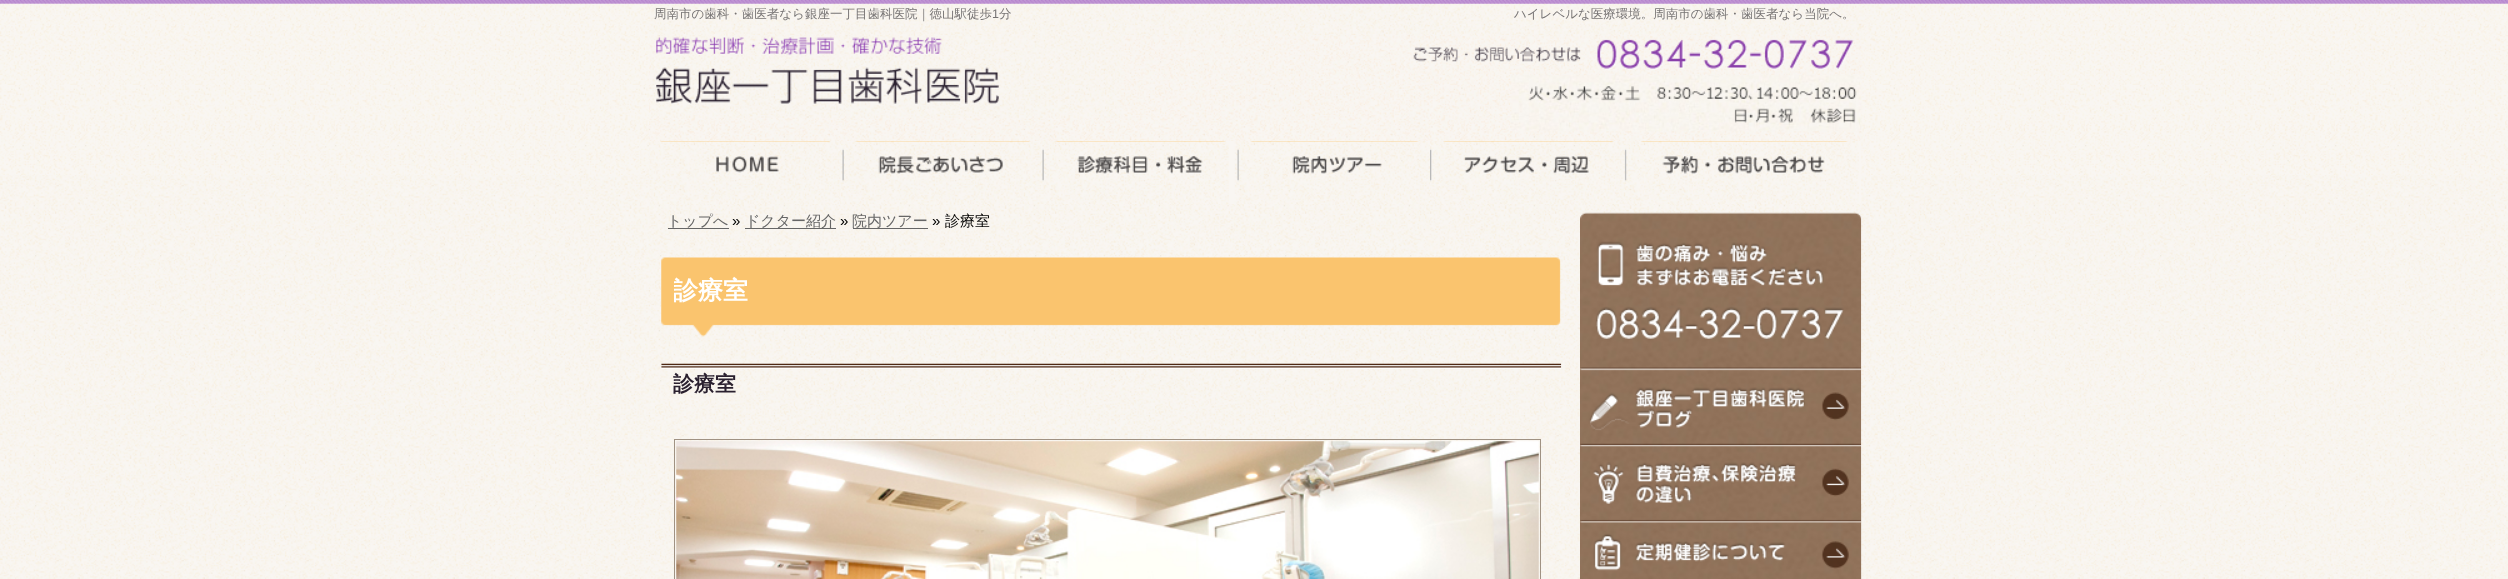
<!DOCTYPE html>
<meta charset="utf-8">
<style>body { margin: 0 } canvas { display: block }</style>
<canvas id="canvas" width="2508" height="579"></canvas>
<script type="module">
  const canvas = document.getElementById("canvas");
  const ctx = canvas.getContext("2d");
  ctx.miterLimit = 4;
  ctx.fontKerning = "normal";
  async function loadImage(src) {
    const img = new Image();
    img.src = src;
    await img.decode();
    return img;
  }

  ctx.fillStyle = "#ffffff";
  ctx.fillRect(0, 0, 2508, 579);
  ctx.drawImage(await loadImage("img1.png"), 0, 175, 2508, 404);
  ctx.drawImage(await loadImage("img2.png"), 0, 0, 2508, 175);
  ctx.drawImage(await loadImage("img3.png"), 649, 0, 1213, 141);
  ctx.font = "500 12.5px WenQuanYi Zen Hei";
  ctx.fillStyle = "#777474";
  ctx.fillText("周南市の歯科・歯医者なら銀座一丁目歯科医院｜徳山駅徒歩", 654, 18);
  ctx.font = "12.5px Liberation Sans";
  ctx.fillText("1", 992, 18);
  ctx.font = "500 12.5px WenQuanYi Zen Hei";
  ctx.fillText("分", 999, 18);
  ctx.fillText("ハイレベルな医療環境。周南市の歯科・歯医者なら当院へ。", 1514, 18);
  ctx.drawImage(await loadImage("img4.png"), 651, 32, 470, 86);
  ctx.drawImage(await loadImage("img12.png"), 661, 257, 900, 80);
  ctx.save();
  ctx.beginPath();
  ctx.rect(674, 269, 812, 42);
  ctx.clip();
  ctx.font = "bold 25px WenQuanYi Zen Hei";
  ctx.fillStyle = "#ffffff";
  ctx.fillText("診療室", 673, 299);
  ctx.restore();
  ctx.drawImage(await loadImage("img5.png"), 649, 141, 1213, 63);
  ctx.drawImage(await loadImage("img6.png"), 658, 141, 174, 58);
  ctx.drawImage(await loadImage("img7.png"), 841, 141, 197, 63);
  ctx.drawImage(await loadImage("img8.png"), 1041, 141, 196, 63);
  ctx.drawImage(await loadImage("img9.png"), 1237, 141, 193, 63);
  ctx.drawImage(await loadImage("img10.png"), 1430, 141, 196, 63);
  ctx.drawImage(await loadImage("img11.png"), 1626, 141, 223, 63);
  ctx.font = "500 15px WenQuanYi Zen Hei";
  ctx.fillStyle = "#666666";
  ctx.fillText("トップへ", 667, 226);
  ctx.fillRect(668, 228, 61, 1);
  ctx.font = "15px Liberation Sans";
  ctx.fillStyle = "#000000";
  ctx.fillText("»", 732, 226);
  ctx.fillStyle = "#666666";
  ctx.fillRect(745, 228, 91, 1);
  ctx.font = "500 15px WenQuanYi Zen Hei";
  ctx.fillText("ドクター紹介", 745, 226);
  ctx.font = "15px Liberation Sans";
  ctx.fillStyle = "#000000";
  ctx.fillText("»", 840, 226);
  ctx.font = "500 15px WenQuanYi Zen Hei";
  ctx.fillStyle = "#666666";
  ctx.fillText("院内ツアー", 852, 226);
  ctx.fillRect(853, 228, 75, 1);
  ctx.font = "15px Liberation Sans";
  ctx.fillStyle = "#000000";
  ctx.fillText("»", 932, 226);
  ctx.font = "500 15px WenQuanYi Zen Hei";
  ctx.fillText("診療室", 945, 226);
  ctx.drawImage(await loadImage("img13.png"), 661, 362, 901, 7);
  ctx.font = "bold 21px WenQuanYi Zen Hei";
  ctx.fillStyle = "#2a202f";
  ctx.fillText("診療室", 673, 391);
  ctx.strokeStyle = "#a09283";
  ctx.strokeRect(674.5, 439.5, 866, 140);
  ctx.drawImage(await loadImage("img14.png"), 676, 441, 863, 138);
  ctx.drawImage(await loadImage("img15.png"), 1580, 504, 282, 75);
  ctx.drawImage(await loadImage("img16.png"), 1580, 212, 282, 157);
  ctx.drawImage(await loadImage("img17.png"), 1580, 368, 282, 77);
  ctx.drawImage(await loadImage("img18.png"), 1580, 445, 282, 77);
  ctx.drawImage(await loadImage("img19.png"), 1580, 521, 282, 58);
</script>
